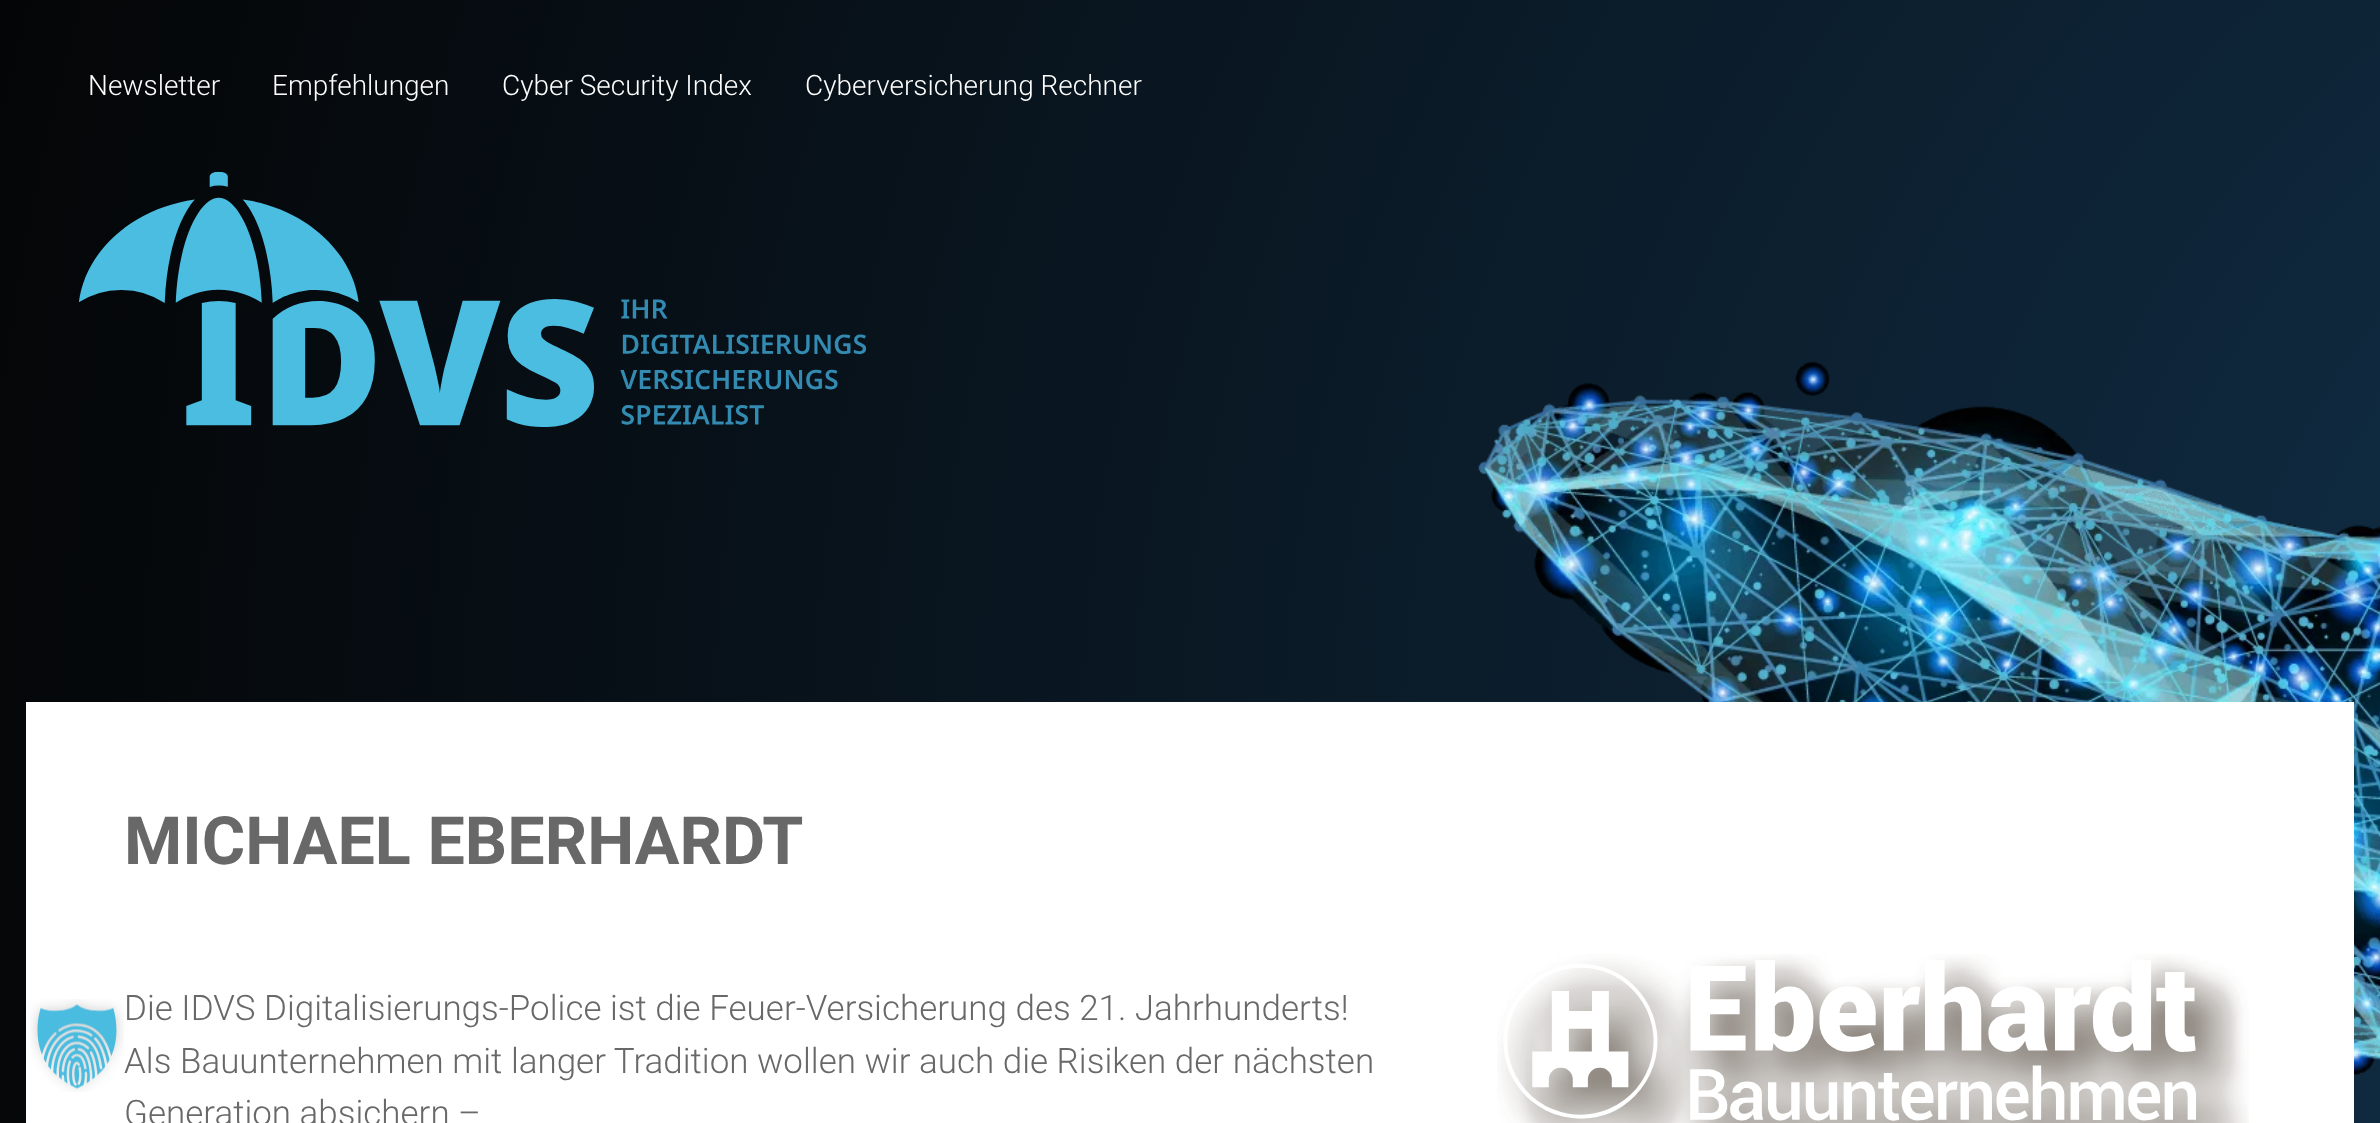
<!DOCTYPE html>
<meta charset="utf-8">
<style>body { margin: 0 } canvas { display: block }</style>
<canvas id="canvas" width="2380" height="1123"></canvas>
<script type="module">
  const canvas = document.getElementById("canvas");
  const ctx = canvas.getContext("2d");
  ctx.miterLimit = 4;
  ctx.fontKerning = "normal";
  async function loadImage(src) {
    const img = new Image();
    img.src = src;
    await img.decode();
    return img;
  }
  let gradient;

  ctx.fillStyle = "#ffffff";
  ctx.fillRect(0, 0, 2380, 1123);
  gradient = ctx.createRadialGradient(2975, 788, 0, 2975, 788, 3078);
  gradient.addColorStop(0, "#12334e");
  gradient.addColorStop(1, "#040506");
  ctx.fillStyle = gradient;
  ctx.fillRect(0, 0, 2380, 1123);
  ctx.drawImage(await loadImage("img4.png"), 1478, 361, 902, 714);
  ctx.fillStyle = "#ffffff";
  ctx.fillRect(26, 702, 2328, 421);
  ctx.drawImage(await loadImage("img1.png"), 30, 999, 94, 93);
  ctx.font = "300 28px Roboto";
  ctx.fillText("Newsletter", 88, 95);
  ctx.fillText("Empfehlungen", 272, 95);
  ctx.fillText("Cyber Security Index", 502, 95);
  ctx.fillText("Cyberversicherung Rechner", 805, 95);
  ctx.drawImage(await loadImage("img2.png"), 79, 171, 787, 256);
  ctx.font = "bold 66.5px Roboto";
  ctx.fillStyle = "#686868";
  ctx.fillText("MICHAEL EBERHARDT", 124, 864);
  ctx.font = "300 35px Roboto";
  ctx.fillText("Die IDVS Digitalisierungs-Police ist die Feuer-Versicherung des 21. Jahrhunderts!", 124, 1020);
  ctx.fillText("Als Bauunternehmen mit langer Tradition wollen wir auch die Risiken der nächsten", 124, 1073);
  ctx.fillText("Generation absichern –", 124, 1125);
  ctx.drawImage(await loadImage("img3.png"), 1497, 954, 752, 169);
</script>
